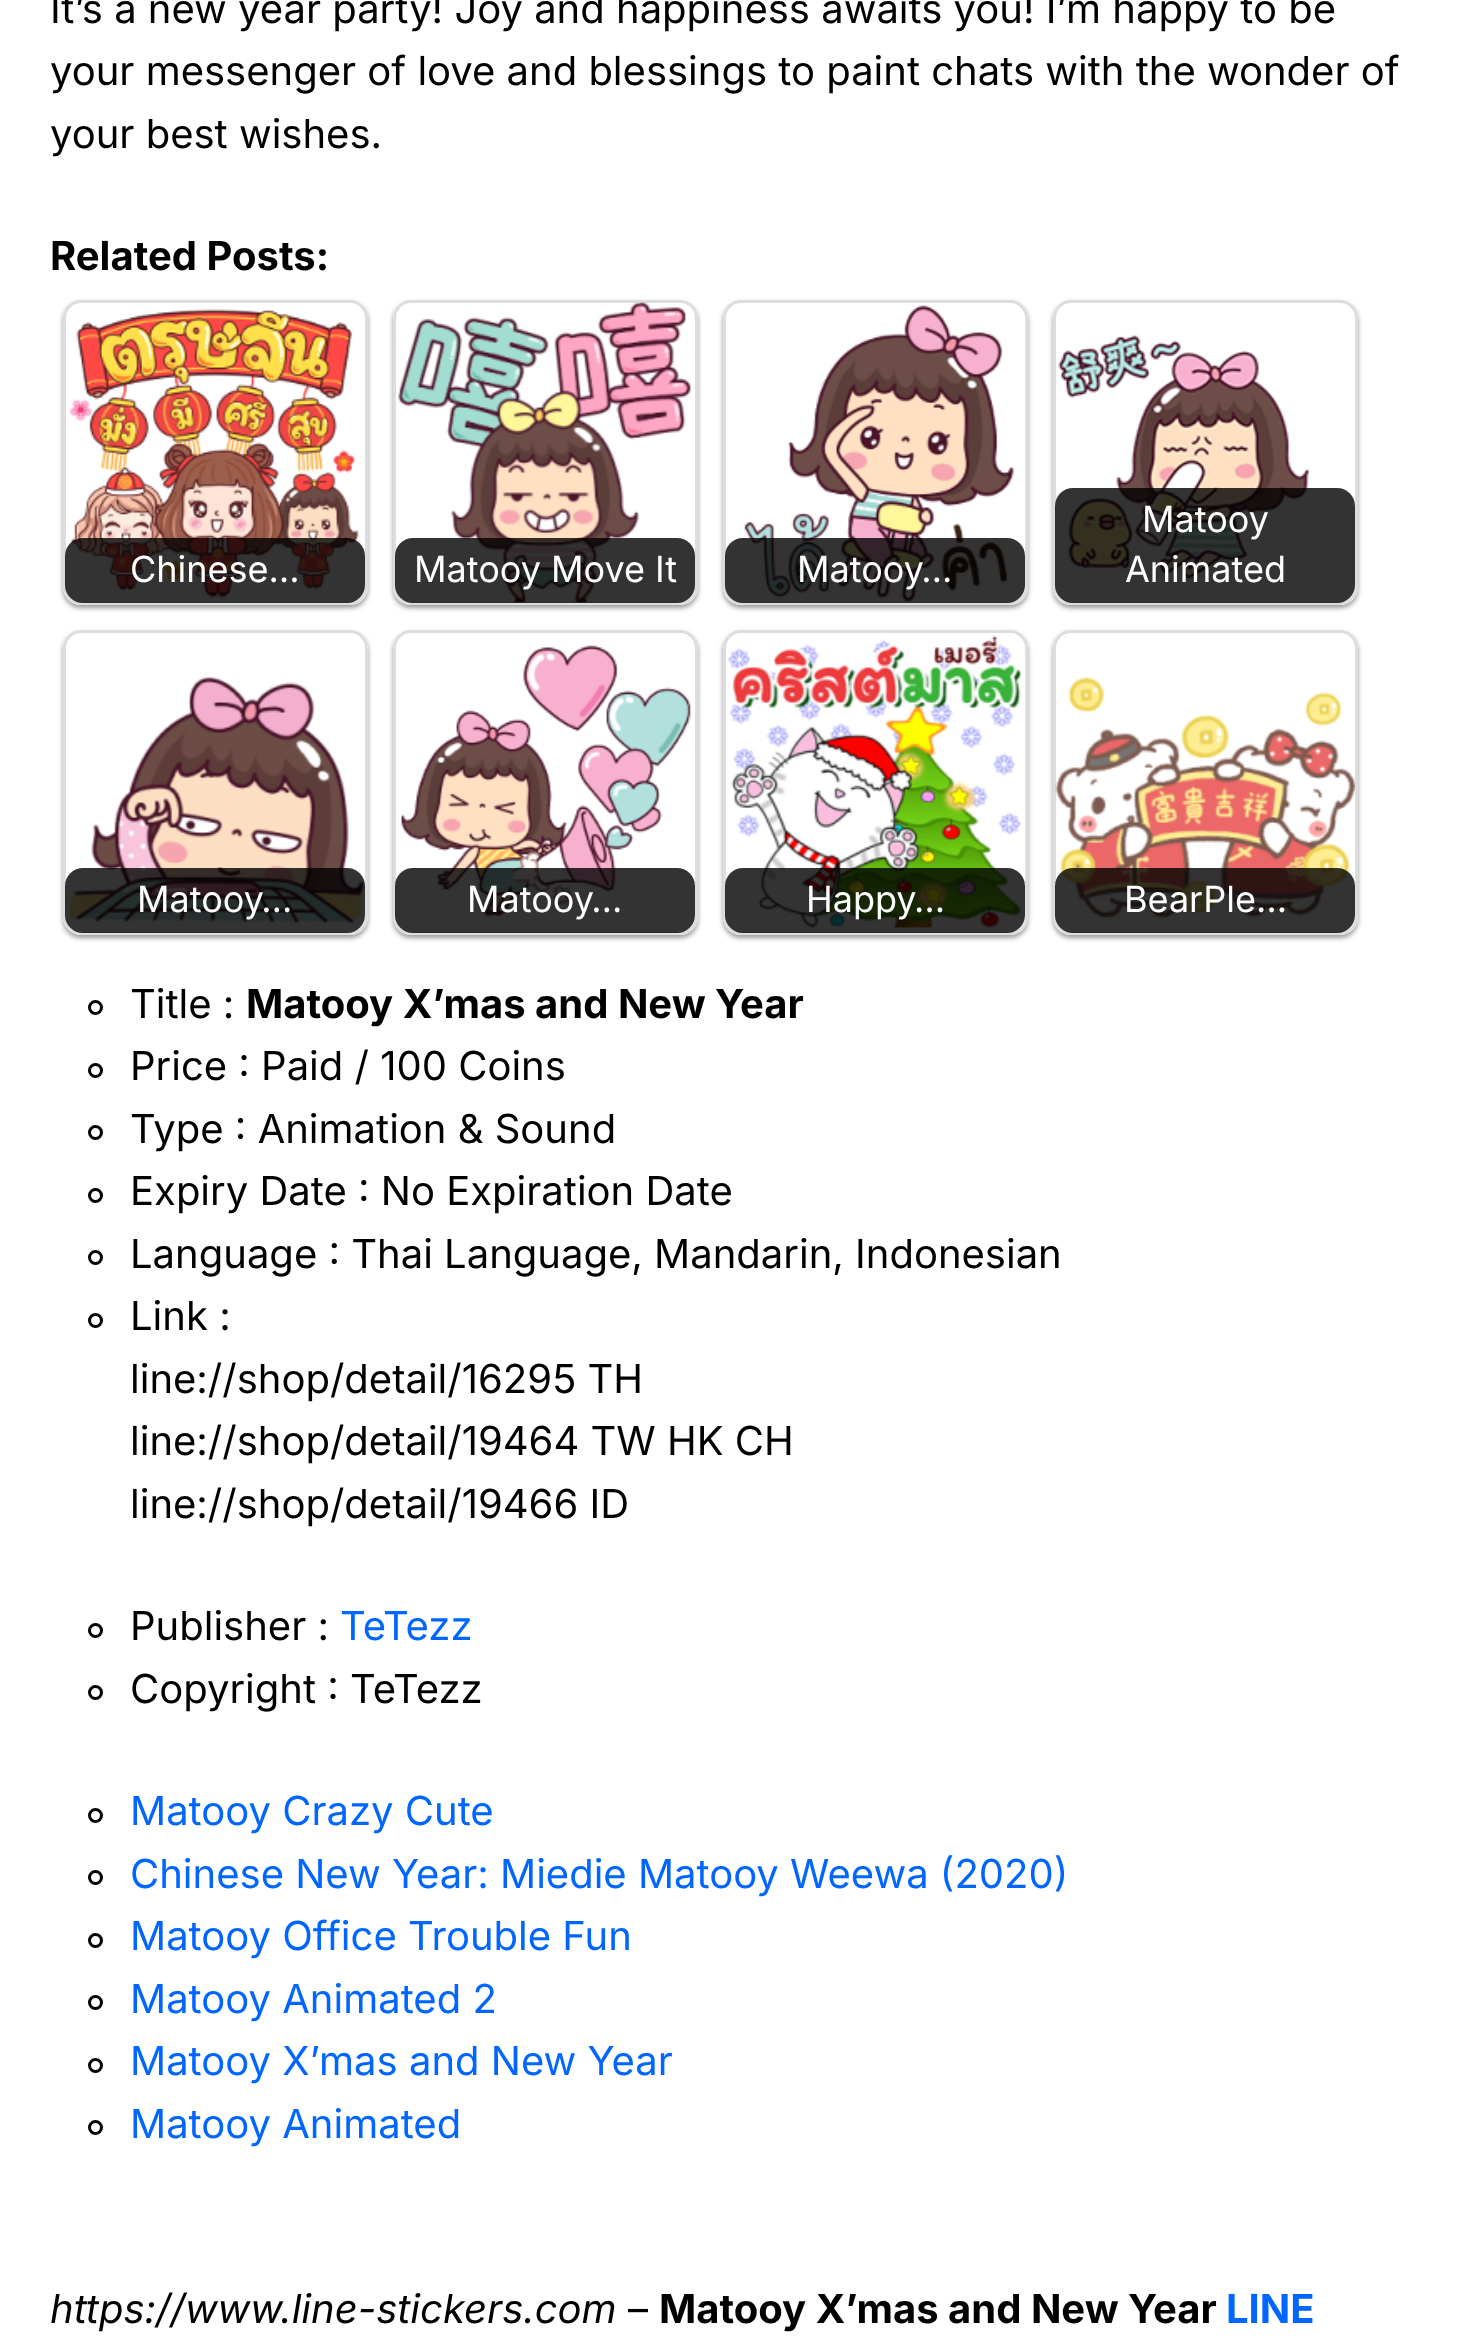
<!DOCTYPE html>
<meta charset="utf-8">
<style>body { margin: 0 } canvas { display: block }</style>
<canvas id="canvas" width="1465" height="2338"></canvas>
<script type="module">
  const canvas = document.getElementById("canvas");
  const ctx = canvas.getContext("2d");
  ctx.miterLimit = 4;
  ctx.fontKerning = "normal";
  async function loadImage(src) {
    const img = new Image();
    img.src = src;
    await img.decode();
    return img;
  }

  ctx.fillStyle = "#ffffff";
  ctx.fillRect(0, 0, 1465, 2338);
  ctx.font = "40px Inter";
  ctx.fillStyle = "#000000";
  ctx.fillText("It’s a new year party! Joy and happiness awaits you! I’m happy to be", 50, 23);
  ctx.fillText("your messenger of love and blessings to paint chats with the wonder of", 50, 85);
  ctx.fillText("your best wishes.", 50, 148);
  ctx.font = "bold 40px Inter";
  ctx.fillText("Related Posts:", 50, 270);
  ctx.save();
  ctx.beginPath();
  ctx.moveTo(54, 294);
  ctx.lineTo(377, 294);
  ctx.lineTo(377, 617);
  ctx.lineTo(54, 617);
  ctx.closePath();
  ctx.moveTo(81, 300);
  ctx.lineTo(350, 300);
  ctx.bezierCurveTo(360, 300, 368, 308, 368, 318);
  ctx.lineTo(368, 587);
  ctx.bezierCurveTo(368, 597, 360, 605, 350, 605);
  ctx.lineTo(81, 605);
  ctx.bezierCurveTo(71, 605, 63, 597, 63, 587);
  ctx.lineTo(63, 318);
  ctx.bezierCurveTo(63, 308, 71, 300, 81, 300);
  ctx.closePath();
  ctx.clip("evenodd");
  ctx.fillStyle = "rgba(0, 0, 0, 0.4)";
  ctx.filter = "blur(2.5px)";
  ctx.beginPath();
  ctx.roundRect(63, 303, 305, 305, 18);
  ctx.fill();
  ctx.filter = "none";
  ctx.restore();
  ctx.beginPath();
  ctx.roundRect(64.5, 301.5, 302, 302, 16.5);
  ctx.strokeStyle = "#dddddd";
  ctx.lineWidth = 3;
  ctx.stroke();
  ctx.drawImage(await loadImage("img1.png"), 69, 309, 290, 289);
  ctx.fillStyle = "rgba(0, 0, 0, 0.8)";
  ctx.beginPath();
  ctx.roundRect(65, 538, 300, 65, 18);
  ctx.fill();
  ctx.font = "36px Inter";
  ctx.fillStyle = "#ffffff";
  ctx.fillText("Chinese…", 130, 582);
  ctx.save();
  ctx.beginPath();
  ctx.moveTo(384, 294);
  ctx.lineTo(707, 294);
  ctx.lineTo(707, 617);
  ctx.lineTo(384, 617);
  ctx.closePath();
  ctx.moveTo(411, 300);
  ctx.lineTo(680, 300);
  ctx.bezierCurveTo(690, 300, 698, 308, 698, 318);
  ctx.lineTo(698, 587);
  ctx.bezierCurveTo(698, 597, 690, 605, 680, 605);
  ctx.lineTo(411, 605);
  ctx.bezierCurveTo(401, 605, 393, 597, 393, 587);
  ctx.lineTo(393, 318);
  ctx.bezierCurveTo(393, 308, 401, 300, 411, 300);
  ctx.closePath();
  ctx.clip("evenodd");
  ctx.fillStyle = "rgba(0, 0, 0, 0.4)";
  ctx.filter = "blur(2.5px)";
  ctx.beginPath();
  ctx.roundRect(393, 303, 305, 305, 18);
  ctx.fill();
  ctx.filter = "none";
  ctx.restore();
  ctx.beginPath();
  ctx.roundRect(394.5, 301.5, 302, 302, 16.5);
  ctx.stroke();
  ctx.drawImage(await loadImage("img2.png"), 398, 302, 293, 301);
  ctx.fillStyle = "rgba(0, 0, 0, 0.8)";
  ctx.beginPath();
  ctx.roundRect(395, 538, 300, 65, 18);
  ctx.fill();
  ctx.fillStyle = "#ffffff";
  ctx.fillText("Matooy Move It", 414, 582);
  ctx.save();
  ctx.beginPath();
  ctx.moveTo(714, 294);
  ctx.lineTo(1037, 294);
  ctx.lineTo(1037, 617);
  ctx.lineTo(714, 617);
  ctx.closePath();
  ctx.moveTo(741, 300);
  ctx.lineTo(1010, 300);
  ctx.bezierCurveTo(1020, 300, 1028, 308, 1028, 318);
  ctx.lineTo(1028, 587);
  ctx.bezierCurveTo(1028, 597, 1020, 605, 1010, 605);
  ctx.lineTo(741, 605);
  ctx.bezierCurveTo(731, 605, 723, 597, 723, 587);
  ctx.lineTo(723, 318);
  ctx.bezierCurveTo(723, 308, 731, 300, 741, 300);
  ctx.closePath();
  ctx.clip("evenodd");
  ctx.fillStyle = "rgba(0, 0, 0, 0.4)";
  ctx.filter = "blur(2.5px)";
  ctx.beginPath();
  ctx.roundRect(723, 303, 305, 305, 18);
  ctx.fill();
  ctx.filter = "none";
  ctx.restore();
  ctx.beginPath();
  ctx.roundRect(724.5, 301.5, 302, 302, 16.5);
  ctx.stroke();
  ctx.drawImage(await loadImage("img3.png"), 744, 305, 270, 297);
  ctx.fillStyle = "rgba(0, 0, 0, 0.8)";
  ctx.beginPath();
  ctx.roundRect(725, 538, 300, 65, 18);
  ctx.fill();
  ctx.fillStyle = "#ffffff";
  ctx.fillText("Matooy…", 797, 582);
  ctx.save();
  ctx.beginPath();
  ctx.moveTo(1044, 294);
  ctx.lineTo(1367, 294);
  ctx.lineTo(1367, 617);
  ctx.lineTo(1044, 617);
  ctx.closePath();
  ctx.moveTo(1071, 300);
  ctx.lineTo(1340, 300);
  ctx.bezierCurveTo(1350, 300, 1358, 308, 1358, 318);
  ctx.lineTo(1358, 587);
  ctx.bezierCurveTo(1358, 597, 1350, 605, 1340, 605);
  ctx.lineTo(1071, 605);
  ctx.bezierCurveTo(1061, 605, 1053, 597, 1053, 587);
  ctx.lineTo(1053, 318);
  ctx.bezierCurveTo(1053, 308, 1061, 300, 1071, 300);
  ctx.closePath();
  ctx.clip("evenodd");
  ctx.fillStyle = "rgba(0, 0, 0, 0.4)";
  ctx.filter = "blur(2.5px)";
  ctx.beginPath();
  ctx.roundRect(1053, 303, 305, 305, 18);
  ctx.fill();
  ctx.filter = "none";
  ctx.restore();
  ctx.beginPath();
  ctx.roundRect(1054.5, 301.5, 302, 302, 16.5);
  ctx.stroke();
  ctx.drawImage(await loadImage("img4.png"), 1058, 335, 252, 245);
  ctx.fillStyle = "rgba(0, 0, 0, 0.8)";
  ctx.beginPath();
  ctx.roundRect(1055, 488, 300, 115, 18);
  ctx.fill();
  ctx.fillStyle = "#ffffff";
  ctx.fillText("Matooy", 1142, 532);
  ctx.fillText("Animated", 1125, 582);
  ctx.save();
  ctx.beginPath();
  ctx.moveTo(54, 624);
  ctx.lineTo(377, 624);
  ctx.lineTo(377, 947);
  ctx.lineTo(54, 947);
  ctx.closePath();
  ctx.moveTo(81, 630);
  ctx.lineTo(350, 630);
  ctx.bezierCurveTo(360, 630, 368, 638, 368, 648);
  ctx.lineTo(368, 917);
  ctx.bezierCurveTo(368, 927, 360, 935, 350, 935);
  ctx.lineTo(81, 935);
  ctx.bezierCurveTo(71, 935, 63, 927, 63, 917);
  ctx.lineTo(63, 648);
  ctx.bezierCurveTo(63, 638, 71, 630, 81, 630);
  ctx.closePath();
  ctx.clip("evenodd");
  ctx.fillStyle = "rgba(0, 0, 0, 0.4)";
  ctx.filter = "blur(2.5px)";
  ctx.beginPath();
  ctx.roundRect(63, 633, 305, 305, 18);
  ctx.fill();
  ctx.filter = "none";
  ctx.restore();
  ctx.beginPath();
  ctx.roundRect(64.5, 631.5, 302, 302, 16.5);
  ctx.stroke();
  ctx.drawImage(await loadImage("img5.png"), 68, 677, 297, 246);
  ctx.fillStyle = "rgba(0, 0, 0, 0.8)";
  ctx.beginPath();
  ctx.roundRect(65, 868, 300, 65, 18);
  ctx.fill();
  ctx.fillStyle = "#ffffff";
  ctx.fillText("Matooy…", 137, 912);
  ctx.save();
  ctx.beginPath();
  ctx.moveTo(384, 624);
  ctx.lineTo(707, 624);
  ctx.lineTo(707, 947);
  ctx.lineTo(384, 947);
  ctx.closePath();
  ctx.moveTo(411, 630);
  ctx.lineTo(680, 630);
  ctx.bezierCurveTo(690, 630, 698, 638, 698, 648);
  ctx.lineTo(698, 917);
  ctx.bezierCurveTo(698, 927, 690, 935, 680, 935);
  ctx.lineTo(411, 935);
  ctx.bezierCurveTo(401, 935, 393, 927, 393, 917);
  ctx.lineTo(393, 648);
  ctx.bezierCurveTo(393, 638, 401, 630, 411, 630);
  ctx.closePath();
  ctx.clip("evenodd");
  ctx.fillStyle = "rgba(0, 0, 0, 0.4)";
  ctx.filter = "blur(2.5px)";
  ctx.beginPath();
  ctx.roundRect(393, 633, 305, 305, 18);
  ctx.fill();
  ctx.filter = "none";
  ctx.restore();
  ctx.beginPath();
  ctx.roundRect(394.5, 631.5, 302, 302, 16.5);
  ctx.stroke();
  ctx.drawImage(await loadImage("img6.png"), 401, 645, 290, 272);
  ctx.fillStyle = "rgba(0, 0, 0, 0.8)";
  ctx.beginPath();
  ctx.roundRect(395, 868, 300, 65, 18);
  ctx.fill();
  ctx.fillStyle = "#ffffff";
  ctx.fillText("Matooy…", 467, 912);
  ctx.save();
  ctx.beginPath();
  ctx.moveTo(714, 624);
  ctx.lineTo(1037, 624);
  ctx.lineTo(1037, 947);
  ctx.lineTo(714, 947);
  ctx.closePath();
  ctx.moveTo(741, 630);
  ctx.lineTo(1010, 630);
  ctx.bezierCurveTo(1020, 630, 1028, 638, 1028, 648);
  ctx.lineTo(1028, 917);
  ctx.bezierCurveTo(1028, 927, 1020, 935, 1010, 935);
  ctx.lineTo(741, 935);
  ctx.bezierCurveTo(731, 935, 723, 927, 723, 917);
  ctx.lineTo(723, 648);
  ctx.bezierCurveTo(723, 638, 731, 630, 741, 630);
  ctx.closePath();
  ctx.clip("evenodd");
  ctx.fillStyle = "rgba(0, 0, 0, 0.4)";
  ctx.filter = "blur(2.5px)";
  ctx.beginPath();
  ctx.roundRect(723, 633, 305, 305, 18);
  ctx.fill();
  ctx.filter = "none";
  ctx.restore();
  ctx.beginPath();
  ctx.roundRect(724.5, 631.5, 302, 302, 16.5);
  ctx.stroke();
  ctx.drawImage(await loadImage("img7.png"), 728, 635, 294, 293);
  ctx.fillStyle = "rgba(0, 0, 0, 0.8)";
  ctx.beginPath();
  ctx.roundRect(725, 868, 300, 65, 18);
  ctx.fill();
  ctx.fillStyle = "#ffffff";
  ctx.fillText("Happy…", 806, 912);
  ctx.save();
  ctx.beginPath();
  ctx.moveTo(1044, 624);
  ctx.lineTo(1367, 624);
  ctx.lineTo(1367, 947);
  ctx.lineTo(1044, 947);
  ctx.closePath();
  ctx.moveTo(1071, 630);
  ctx.lineTo(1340, 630);
  ctx.bezierCurveTo(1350, 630, 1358, 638, 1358, 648);
  ctx.lineTo(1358, 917);
  ctx.bezierCurveTo(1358, 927, 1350, 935, 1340, 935);
  ctx.lineTo(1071, 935);
  ctx.bezierCurveTo(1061, 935, 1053, 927, 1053, 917);
  ctx.lineTo(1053, 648);
  ctx.bezierCurveTo(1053, 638, 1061, 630, 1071, 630);
  ctx.closePath();
  ctx.clip("evenodd");
  ctx.fillStyle = "rgba(0, 0, 0, 0.4)";
  ctx.filter = "blur(2.5px)";
  ctx.beginPath();
  ctx.roundRect(1053, 633, 305, 305, 18);
  ctx.fill();
  ctx.filter = "none";
  ctx.restore();
  ctx.beginPath();
  ctx.roundRect(1054.5, 631.5, 302, 302, 16.5);
  ctx.stroke();
  ctx.drawImage(await loadImage("img8.png"), 1055, 677, 300, 241);
  ctx.fillStyle = "rgba(0, 0, 0, 0.8)";
  ctx.beginPath();
  ctx.roundRect(1055, 868, 300, 65, 18);
  ctx.fill();
  ctx.fillStyle = "#ffffff";
  ctx.fillText("BearPle…", 1124, 912);
  ctx.beginPath();
  ctx.arc(95.5, 1007.5, 6, 0, Math.PI * 2);
  ctx.strokeStyle = "#000000";
  ctx.stroke();
  ctx.font = "40px Inter";
  ctx.fillStyle = "#000000";
  ctx.fillText("Title :", 130, 1018);
  ctx.font = "bold 40px Inter";
  ctx.fillText("Matooy X’mas and New Year", 246, 1018);
  ctx.beginPath();
  ctx.arc(95.5, 1070.5, 6, 0, Math.PI * 2);
  ctx.stroke();
  ctx.font = "40px Inter";
  ctx.fillText("Price : Paid / 100 Coins", 130, 1080);
  ctx.beginPath();
  ctx.arc(95.5, 1132.5, 6, 0, Math.PI * 2);
  ctx.stroke();
  ctx.fillText("Type : Animation & Sound", 130, 1143);
  ctx.beginPath();
  ctx.arc(95.5, 1195.5, 6, 0, Math.PI * 2);
  ctx.stroke();
  ctx.fillText("Expiry Date : No Expiration Date", 130, 1205);
  ctx.beginPath();
  ctx.arc(95.5, 1257.5, 6, 0, Math.PI * 2);
  ctx.stroke();
  ctx.fillText("Language : Thai Language, Mandarin, Indonesian", 130, 1268);
  ctx.beginPath();
  ctx.arc(95.5, 1320.5, 6, 0, Math.PI * 2);
  ctx.stroke();
  ctx.fillText("Link :", 130, 1330);
  ctx.fillText("line://shop/detail/16295 TH", 130, 1393);
  ctx.fillText("line://shop/detail/19464 TW HK CH", 130, 1455);
  ctx.fillText("line://shop/detail/19466 ID", 130, 1518);
  ctx.beginPath();
  ctx.arc(95.5, 1630.5, 6, 0, Math.PI * 2);
  ctx.stroke();
  ctx.fillText("Publisher :", 130, 1640);
  ctx.fillStyle = "#0166ff";
  ctx.fillText("TeTezz", 340, 1640);
  ctx.beginPath();
  ctx.arc(95.5, 1692.5, 6, 0, Math.PI * 2);
  ctx.stroke();
  ctx.fillStyle = "#000000";
  ctx.fillText("Copyright : TeTezz", 130, 1703);
  ctx.beginPath();
  ctx.arc(95.5, 1815.5, 6, 0, Math.PI * 2);
  ctx.stroke();
  ctx.fillStyle = "#0166ff";
  ctx.fillText("Matooy Crazy Cute", 130, 1825);
  ctx.beginPath();
  ctx.arc(95.5, 1877.5, 6, 0, Math.PI * 2);
  ctx.stroke();
  ctx.fillText("Chinese New Year: Miedie Matooy Weewa (2020)", 130, 1888);
  ctx.beginPath();
  ctx.arc(95.5, 1940.5, 6, 0, Math.PI * 2);
  ctx.stroke();
  ctx.fillText("Matooy Office Trouble Fun", 130, 1950);
  ctx.beginPath();
  ctx.arc(95.5, 2002.5, 6, 0, Math.PI * 2);
  ctx.stroke();
  ctx.fillText("Matooy Animated 2", 130, 2013);
  ctx.beginPath();
  ctx.arc(95.5, 2065.5, 6, 0, Math.PI * 2);
  ctx.stroke();
  ctx.fillText("Matooy X’mas and New Year", 130, 2075);
  ctx.beginPath();
  ctx.arc(95.5, 2127.5, 6, 0, Math.PI * 2);
  ctx.stroke();
  ctx.fillText("Matooy Animated", 130, 2138);
  ctx.font = "italic 40px Inter";
  ctx.fillStyle = "#000000";
  ctx.fillText("https://www.line-stickers.com", 50, 2323);
  ctx.font = "40px Inter";
  ctx.fillText("–", 628, 2323);
  ctx.font = "bold 40px Inter";
  ctx.fillText("Matooy X’mas and New Year", 659, 2323);
  ctx.fillStyle = "#0166ff";
  ctx.fillText("LINE", 1226, 2323);
</script>
